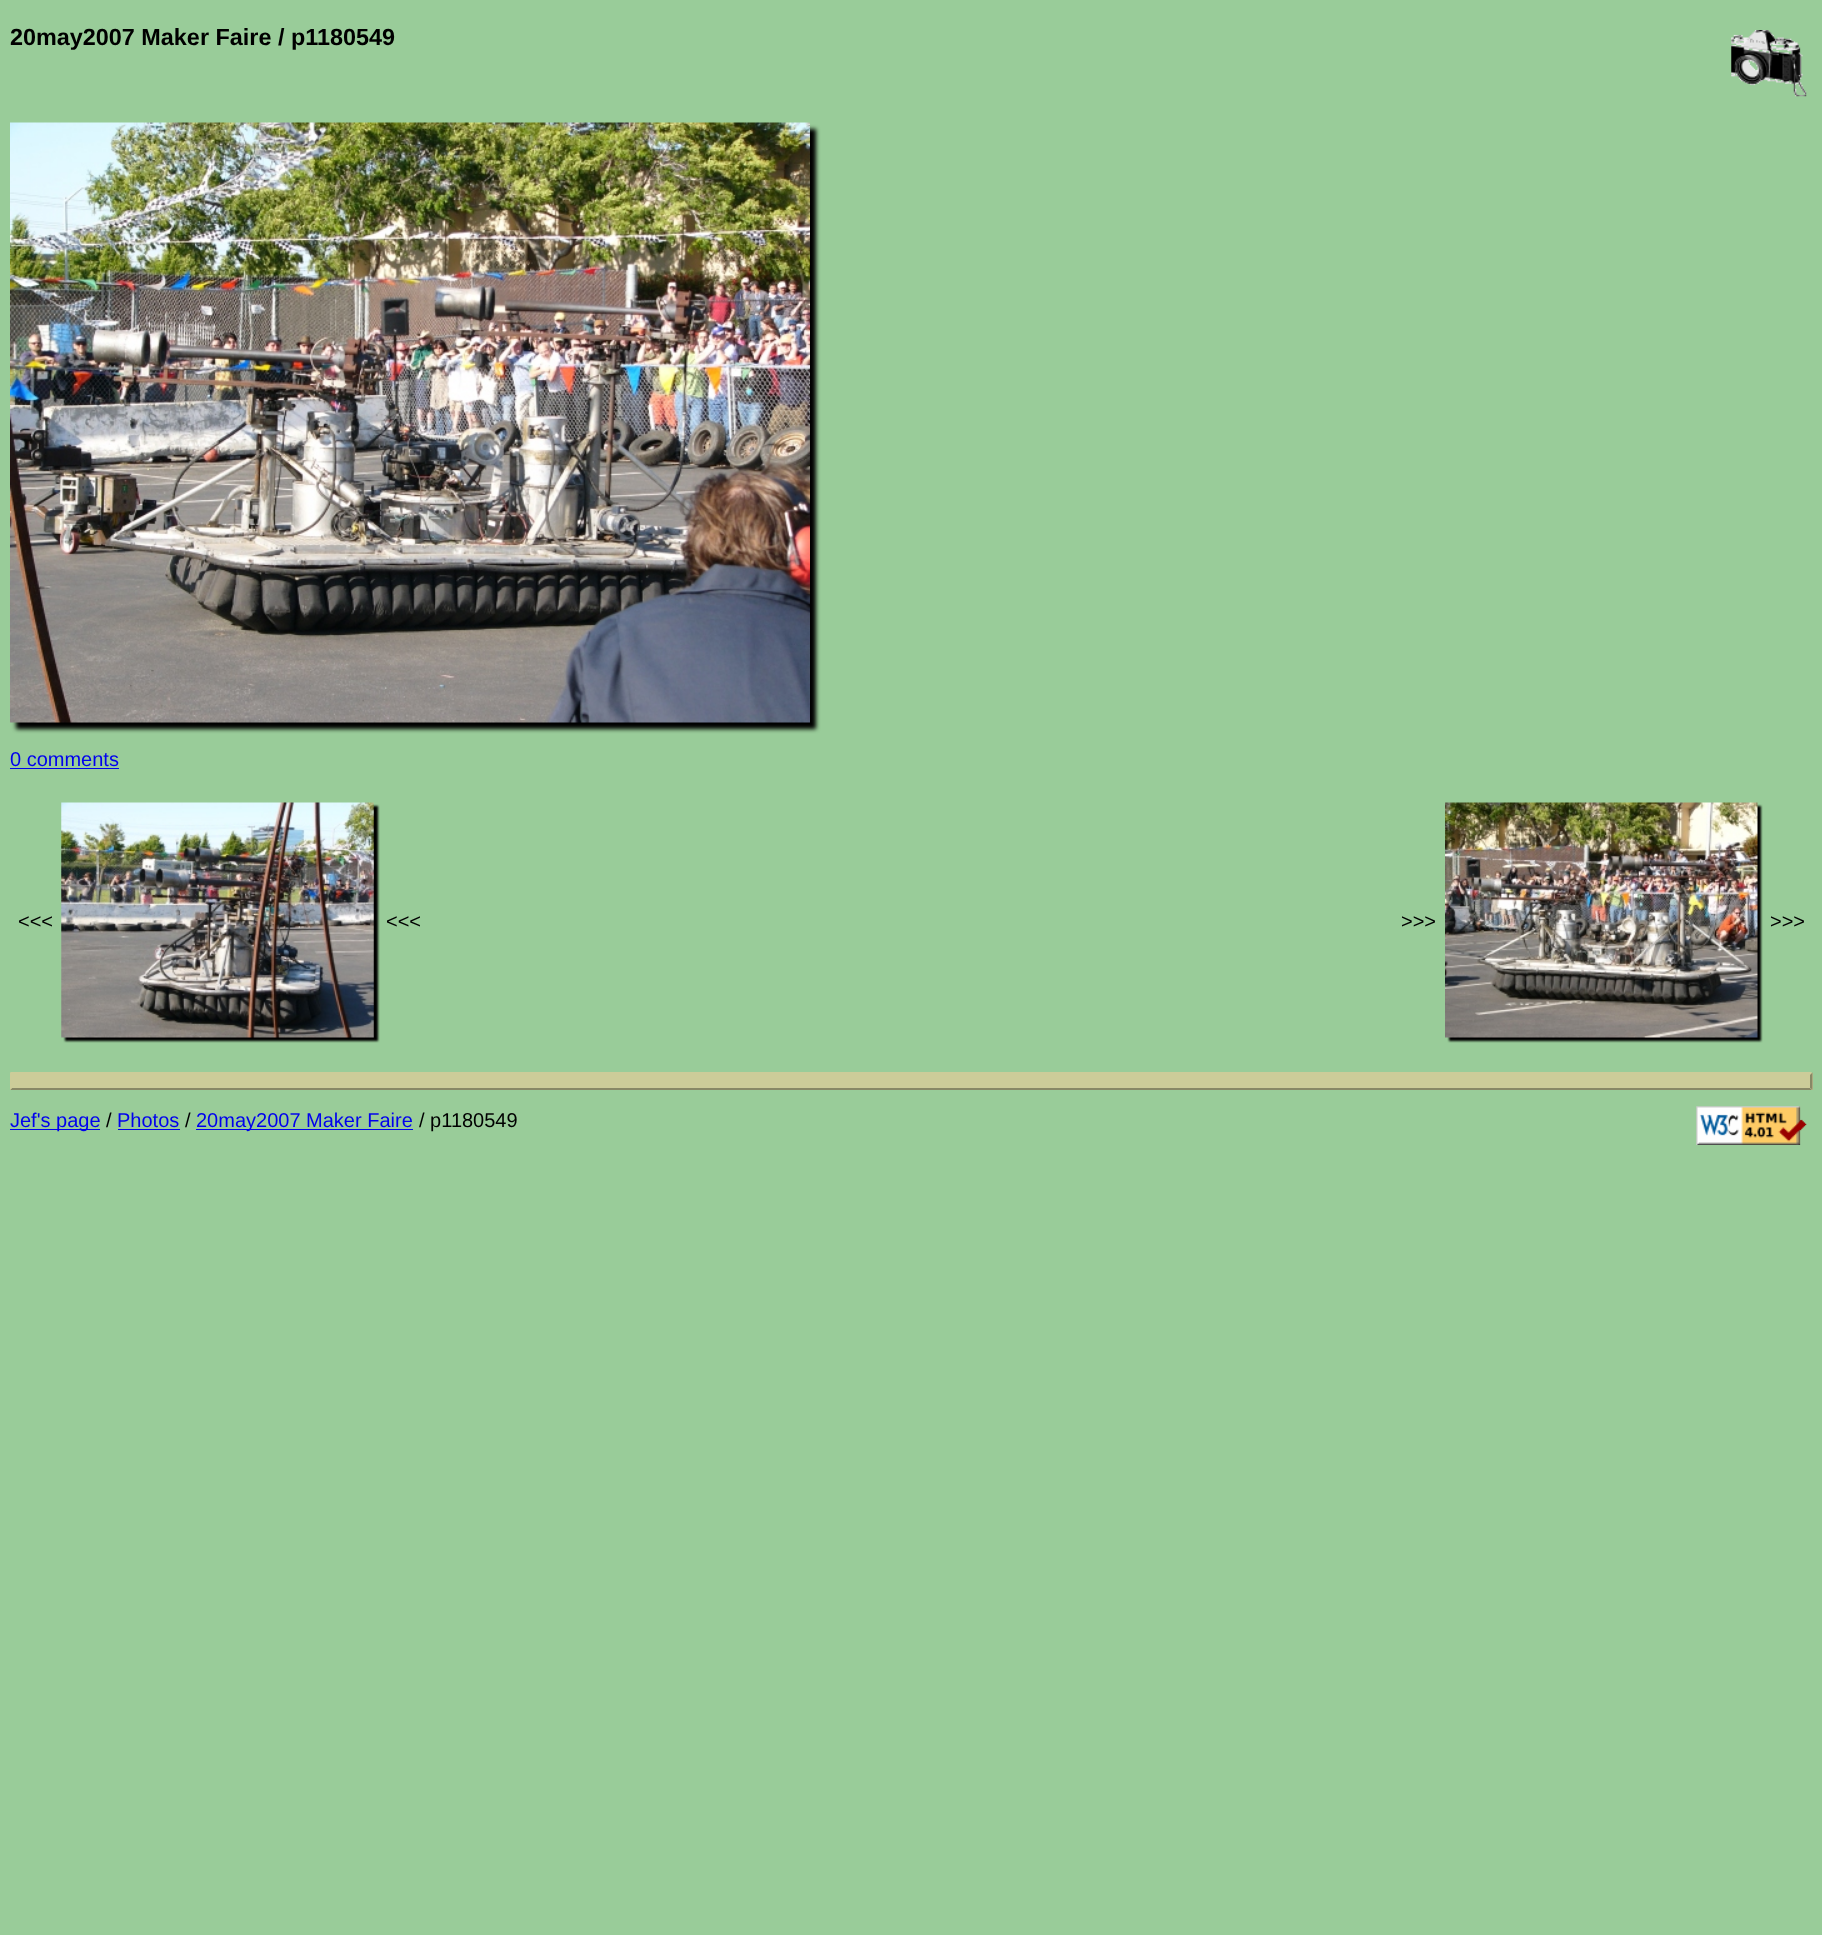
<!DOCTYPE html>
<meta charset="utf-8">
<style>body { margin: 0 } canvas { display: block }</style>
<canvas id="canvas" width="1822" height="1935"></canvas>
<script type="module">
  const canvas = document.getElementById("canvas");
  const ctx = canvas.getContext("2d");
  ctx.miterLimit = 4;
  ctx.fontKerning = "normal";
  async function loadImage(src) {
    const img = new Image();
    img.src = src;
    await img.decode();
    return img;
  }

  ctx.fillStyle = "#99cc99";
  ctx.fillRect(0, 0, 1822, 1935);
  ctx.font = "bold 23.4px Liberation Sans";
  ctx.fillStyle = "#000000";
  ctx.fillText("20may2007 Maker Faire / p1180549", 10, 45);
  ctx.drawImage(await loadImage("img1.png"), 1731, 30, 76, 67);
  ctx.filter = "blur(2px)";
  ctx.beginPath();
  ctx.rect(16, 129, 800, 600);
  ctx.fill();
  ctx.filter = "none";
  ctx.drawImage(await loadImage("img2.png"), 10, 122, 800, 601);
  ctx.font = "20px Liberation Sans";
  ctx.fillStyle = "#0000ee";
  ctx.fillText("0 comments", 10, 766);
  ctx.fillRect(10, 768, 109, 1);
  ctx.fillStyle = "#000000";
  ctx.fillText("<<<", 18, 928);
  ctx.filter = "blur(1px)";
  ctx.beginPath();
  ctx.rect(65, 806, 313, 235);
  ctx.fill();
  ctx.filter = "none";
  ctx.drawImage(await loadImage("img3.png"), 61, 802, 313, 236);
  ctx.fillText("<<<", 386, 928);
  ctx.fillText(">>>", 1401, 928);
  ctx.filter = "blur(1px)";
  ctx.beginPath();
  ctx.rect(1449, 806, 312, 235);
  ctx.fill();
  ctx.filter = "none";
  ctx.drawImage(await loadImage("img4.png"), 1445, 802, 313, 236);
  ctx.fillText(">>>", 1770, 928);
  ctx.fillStyle = "#cccc99";
  ctx.fillRect(10, 1073, 1803, 17);
  ctx.beginPath();
  ctx.moveTo(10, 1072);
  ctx.lineTo(1812, 1072);
  ctx.lineTo(1810, 1075);
  ctx.lineTo(12, 1075);
  ctx.closePath();
  ctx.fill();
  ctx.fillStyle = "#888866";
  ctx.beginPath();
  ctx.moveTo(1812.5, 1072.5);
  ctx.lineTo(1812.5, 1090);
  ctx.lineTo(1810, 1087.5);
  ctx.lineTo(1810, 1075);
  ctx.closePath();
  ctx.fill();
  ctx.beginPath();
  ctx.moveTo(1812, 1090);
  ctx.lineTo(10, 1090);
  ctx.lineTo(12, 1088);
  ctx.lineTo(1810, 1088);
  ctx.closePath();
  ctx.fill();
  ctx.fillStyle = "#cccc99";
  ctx.beginPath();
  ctx.moveTo(10, 1090);
  ctx.lineTo(10, 1072.5);
  ctx.lineTo(12.5, 1075);
  ctx.lineTo(12.5, 1087.5);
  ctx.closePath();
  ctx.fill();
  ctx.fillStyle = "#0000ee";
  ctx.fillRect(10, 1129, 90, 1);
  ctx.fillText("Jef's page", 10, 1127);
  ctx.fillStyle = "#000000";
  ctx.fillText("/", 106, 1127);
  ctx.fillStyle = "#0000ee";
  ctx.fillText("Photos", 117, 1127);
  ctx.fillRect(118, 1129, 62, 1);
  ctx.fillStyle = "#000000";
  ctx.fillText("/", 185, 1127);
  ctx.fillStyle = "#0000ee";
  ctx.fillRect(196, 1129, 217, 1);
  ctx.fillText("20may2007 Maker Faire", 196, 1127);
  ctx.fillStyle = "#000000";
  ctx.fillText("/ p1180549", 419, 1127);
  ctx.drawImage(await loadImage("img5.png"), 1696, 1106, 111, 39);
</script>
